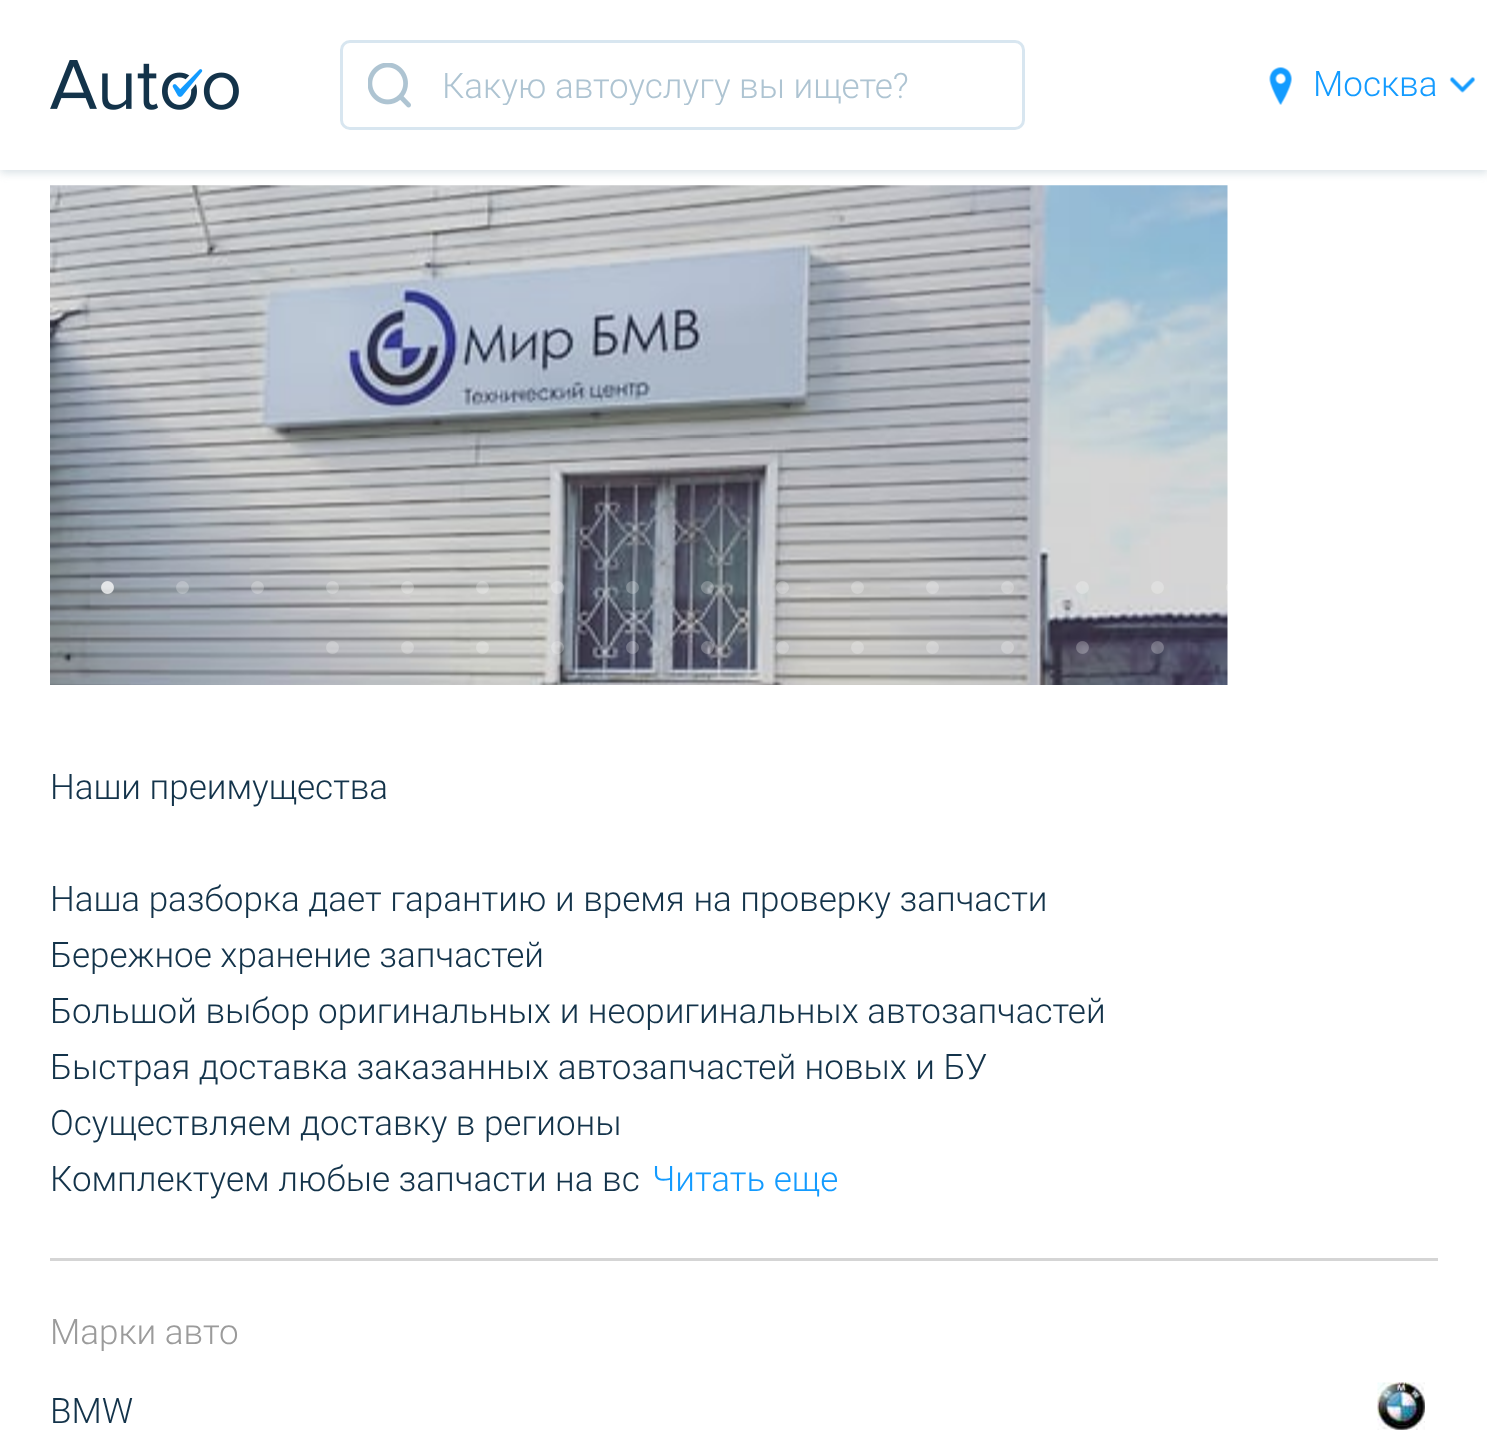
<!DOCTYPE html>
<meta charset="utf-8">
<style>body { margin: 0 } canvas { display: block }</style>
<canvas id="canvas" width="1487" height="1442"></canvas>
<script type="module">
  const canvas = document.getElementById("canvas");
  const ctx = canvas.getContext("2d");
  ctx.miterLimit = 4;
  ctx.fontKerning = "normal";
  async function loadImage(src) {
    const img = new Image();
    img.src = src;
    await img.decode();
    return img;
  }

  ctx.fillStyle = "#ffffff";
  ctx.fillRect(0, 0, 1487, 1442);
  ctx.drawImage(await loadImage("img5.png"), 50, 185, 1178, 500);
  ctx.fillStyle = "#d9e2e6";
  ctx.filter = "blur(4px)";
  ctx.beginPath();
  ctx.rect(0, 3, 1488, 170);
  ctx.fill();
  ctx.filter = "none";
  ctx.fillStyle = "#ffffff";
  ctx.fillRect(0, 0, 1487, 170);
  ctx.drawImage(await loadImage("img1.png"), 50, 60, 189, 50);
  ctx.drawImage(await loadImage("img2.png"), 368, 63, 43, 45);
  ctx.beginPath();
  ctx.roundRect(341.5, 41.5, 682, 87, 8.5);
  ctx.strokeStyle = "#d8e6f0";
  ctx.lineWidth = 3;
  ctx.stroke();
  ctx.save();
  ctx.beginPath();
  ctx.rect(443, 65, 555, 40);
  ctx.clip();
  ctx.font = "300 35px Roboto";
  ctx.fillStyle = "#aec4d2";
  ctx.fillText("Какую автоуслугу вы ищете?", 442, 98);
  ctx.restore();
  ctx.drawImage(await loadImage("img3.png"), 1269, 67, 23, 38);
  ctx.font = "300 35px Roboto";
  ctx.fillStyle = "#139bff";
  ctx.fillText("Москва", 1313, 96);
  ctx.drawImage(await loadImage("img4.png"), 1449, 77, 27, 16);
  ctx.drawImage(await loadImage("img6.png"), 101, 581, 13, 13);
  ctx.drawImage(await loadImage("img7.png"), 176, 581, 13, 13);
  ctx.drawImage(await loadImage("img8.png"), 251, 581, 13, 13);
  ctx.drawImage(await loadImage("img9.png"), 326, 581, 13, 13);
  ctx.drawImage(await loadImage("img10.png"), 401, 581, 13, 13);
  ctx.drawImage(await loadImage("img11.png"), 476, 581, 13, 13);
  ctx.drawImage(await loadImage("img12.png"), 551, 581, 13, 13);
  ctx.drawImage(await loadImage("img13.png"), 626, 581, 13, 13);
  ctx.drawImage(await loadImage("img14.png"), 701, 581, 13, 13);
  ctx.drawImage(await loadImage("img15.png"), 776, 581, 13, 13);
  ctx.drawImage(await loadImage("img16.png"), 851, 581, 13, 13);
  ctx.drawImage(await loadImage("img17.png"), 926, 581, 13, 13);
  ctx.drawImage(await loadImage("img18.png"), 1001, 581, 13, 13);
  ctx.drawImage(await loadImage("img19.png"), 1076, 581, 13, 13);
  ctx.drawImage(await loadImage("img20.png"), 1151, 581, 13, 13);
  ctx.drawImage(await loadImage("img21.png"), 1226, 584, 2, 7);
  ctx.drawImage(await loadImage("img22.png"), 326, 641, 13, 13);
  ctx.drawImage(await loadImage("img23.png"), 401, 641, 13, 13);
  ctx.drawImage(await loadImage("img24.png"), 476, 641, 13, 13);
  ctx.drawImage(await loadImage("img25.png"), 551, 641, 13, 13);
  ctx.drawImage(await loadImage("img26.png"), 626, 641, 13, 13);
  ctx.drawImage(await loadImage("img27.png"), 701, 641, 13, 13);
  ctx.drawImage(await loadImage("img28.png"), 776, 641, 13, 13);
  ctx.drawImage(await loadImage("img29.png"), 851, 641, 13, 13);
  ctx.drawImage(await loadImage("img30.png"), 926, 641, 13, 13);
  ctx.drawImage(await loadImage("img31.png"), 1001, 641, 13, 13);
  ctx.drawImage(await loadImage("img32.png"), 1076, 641, 13, 13);
  ctx.drawImage(await loadImage("img33.png"), 1151, 641, 13, 13);
  ctx.fillStyle = "#13334a";
  ctx.fillText("Наши преимущества", 50, 799);
  ctx.fillText("Наша разборка дает гарантию и время на проверку запчасти", 50, 911);
  ctx.fillText("Бережное хранение запчастей", 50, 967);
  ctx.fillText("Большой выбор оригинальных и неоригинальных автозапчастей", 50, 1023);
  ctx.fillText("Быстрая доставка заказанных автозапчастей новых и БУ", 50, 1079);
  ctx.fillText("Осуществляем доставку в регионы", 50, 1135);
  ctx.fillText("Комплектуем любые запчасти на вс", 50, 1191);
  ctx.fillStyle = "#139bff";
  ctx.fillText("Читать еще", 652, 1191);
  ctx.fillStyle = "#d5d5d5";
  ctx.fillRect(50, 1258, 1388, 3);
  ctx.fillStyle = "#9b9b9b";
  ctx.fillText("Марки авто", 50, 1344);
  ctx.fillStyle = "#13334a";
  ctx.fillText("BMW", 50, 1423);
  ctx.drawImage(await loadImage("img34.png"), 1377, 1382, 48, 48);
</script>
